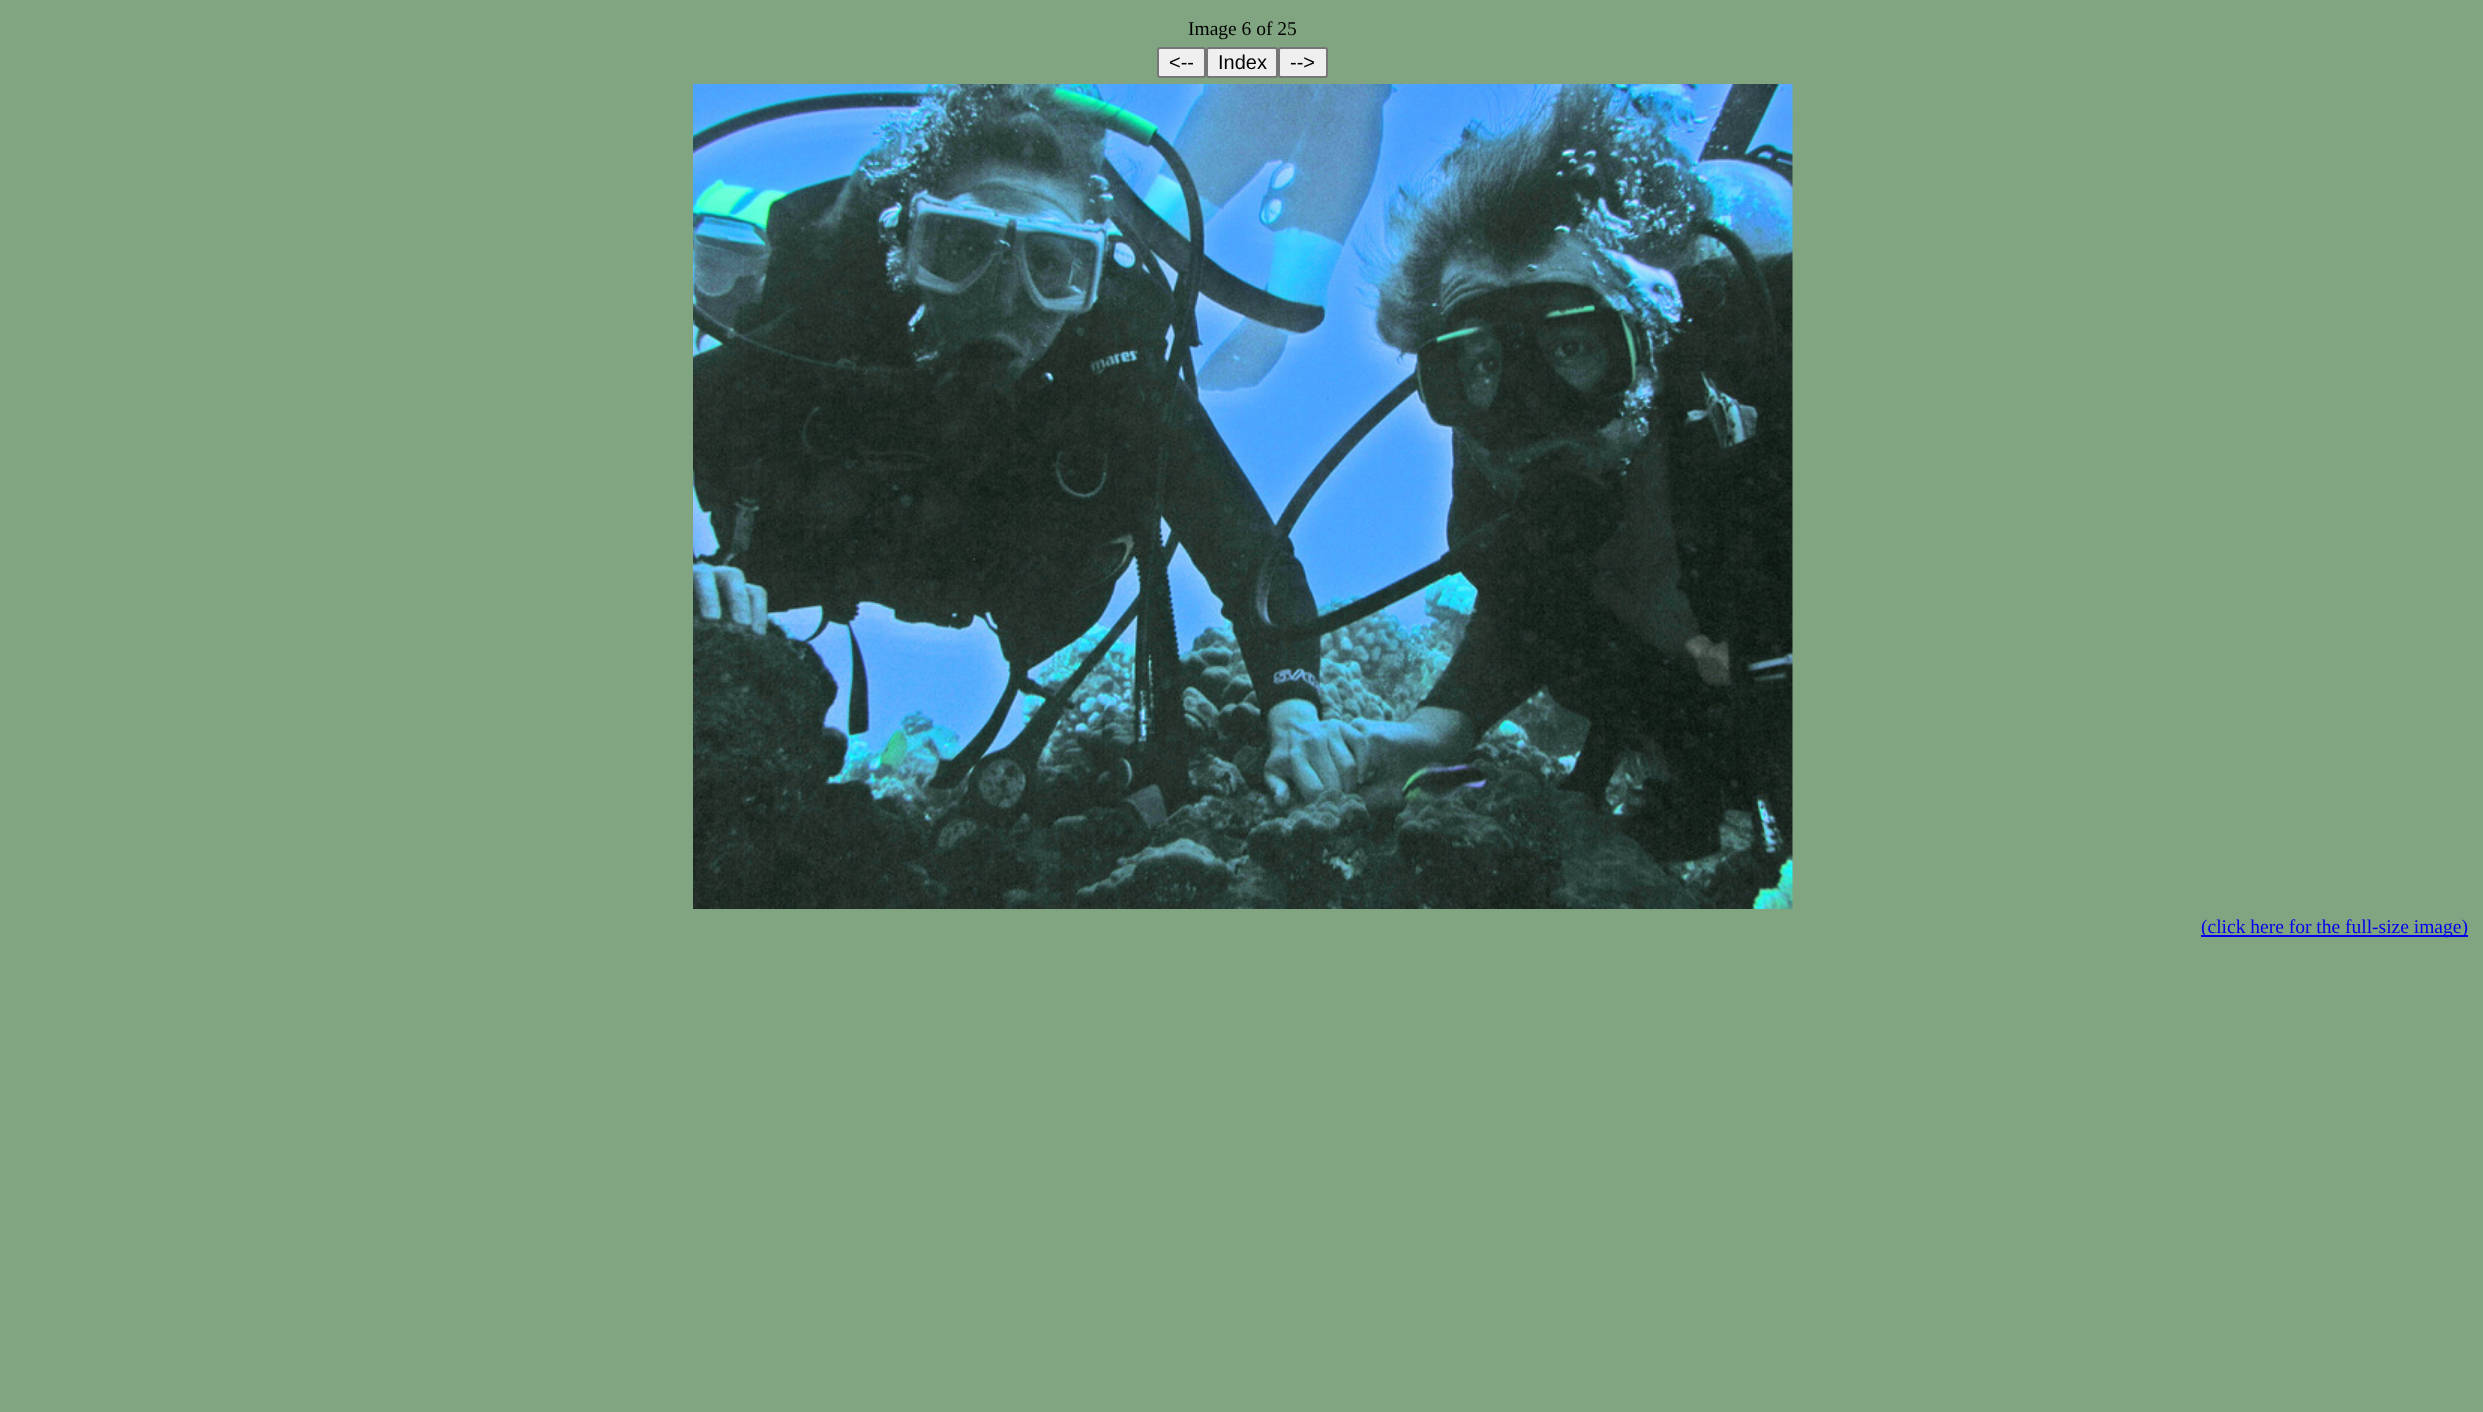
<!DOCTYPE html>
<meta charset="utf-8">
<style>body { margin: 0 } canvas { display: block }</style>
<canvas id="canvas" width="2483" height="1412"></canvas>
<script type="module">
  const canvas = document.getElementById("canvas");
  const ctx = canvas.getContext("2d");
  ctx.miterLimit = 4;
  ctx.fontKerning = "normal";
  async function loadImage(src) {
    const img = new Image();
    img.src = src;
    await img.decode();
    return img;
  }

  ctx.fillStyle = "#80a580";
  ctx.fillRect(0, 0, 2483, 1412);
  ctx.font = "19.5px Liberation Serif";
  ctx.fillStyle = "#000000";
  ctx.fillText("Image 6 of 25", 1188, 35);
  ctx.fillStyle = "#efefef";
  ctx.beginPath();
  ctx.roundRect(1158, 48, 47, 29, 2);
  ctx.fill();
  ctx.strokeStyle = "#767676";
  ctx.lineWidth = 2;
  ctx.stroke();
  ctx.font = "20px Liberation Sans";
  ctx.fillStyle = "#000000";
  ctx.fillText("<--", 1169, 69);
  ctx.fillStyle = "#efefef";
  ctx.beginPath();
  ctx.roundRect(1207, 48, 70, 29, 2);
  ctx.fill();
  ctx.stroke();
  ctx.fillStyle = "#000000";
  ctx.fillText("Index", 1218, 69);
  ctx.fillStyle = "#efefef";
  ctx.beginPath();
  ctx.roundRect(1279, 48, 48, 29, 2);
  ctx.fill();
  ctx.stroke();
  ctx.fillStyle = "#000000";
  ctx.fillText("-->", 1290, 69);
  ctx.drawImage(await loadImage("img1.png"), 693, 84, 1100, 825);
  ctx.fillStyle = "#0000ee";
  ctx.fillRect(2201, 935, 267, 2);
  ctx.font = "19.5px Liberation Serif";
  ctx.fillText("(click here for the full-size image)", 2201, 933);
</script>
